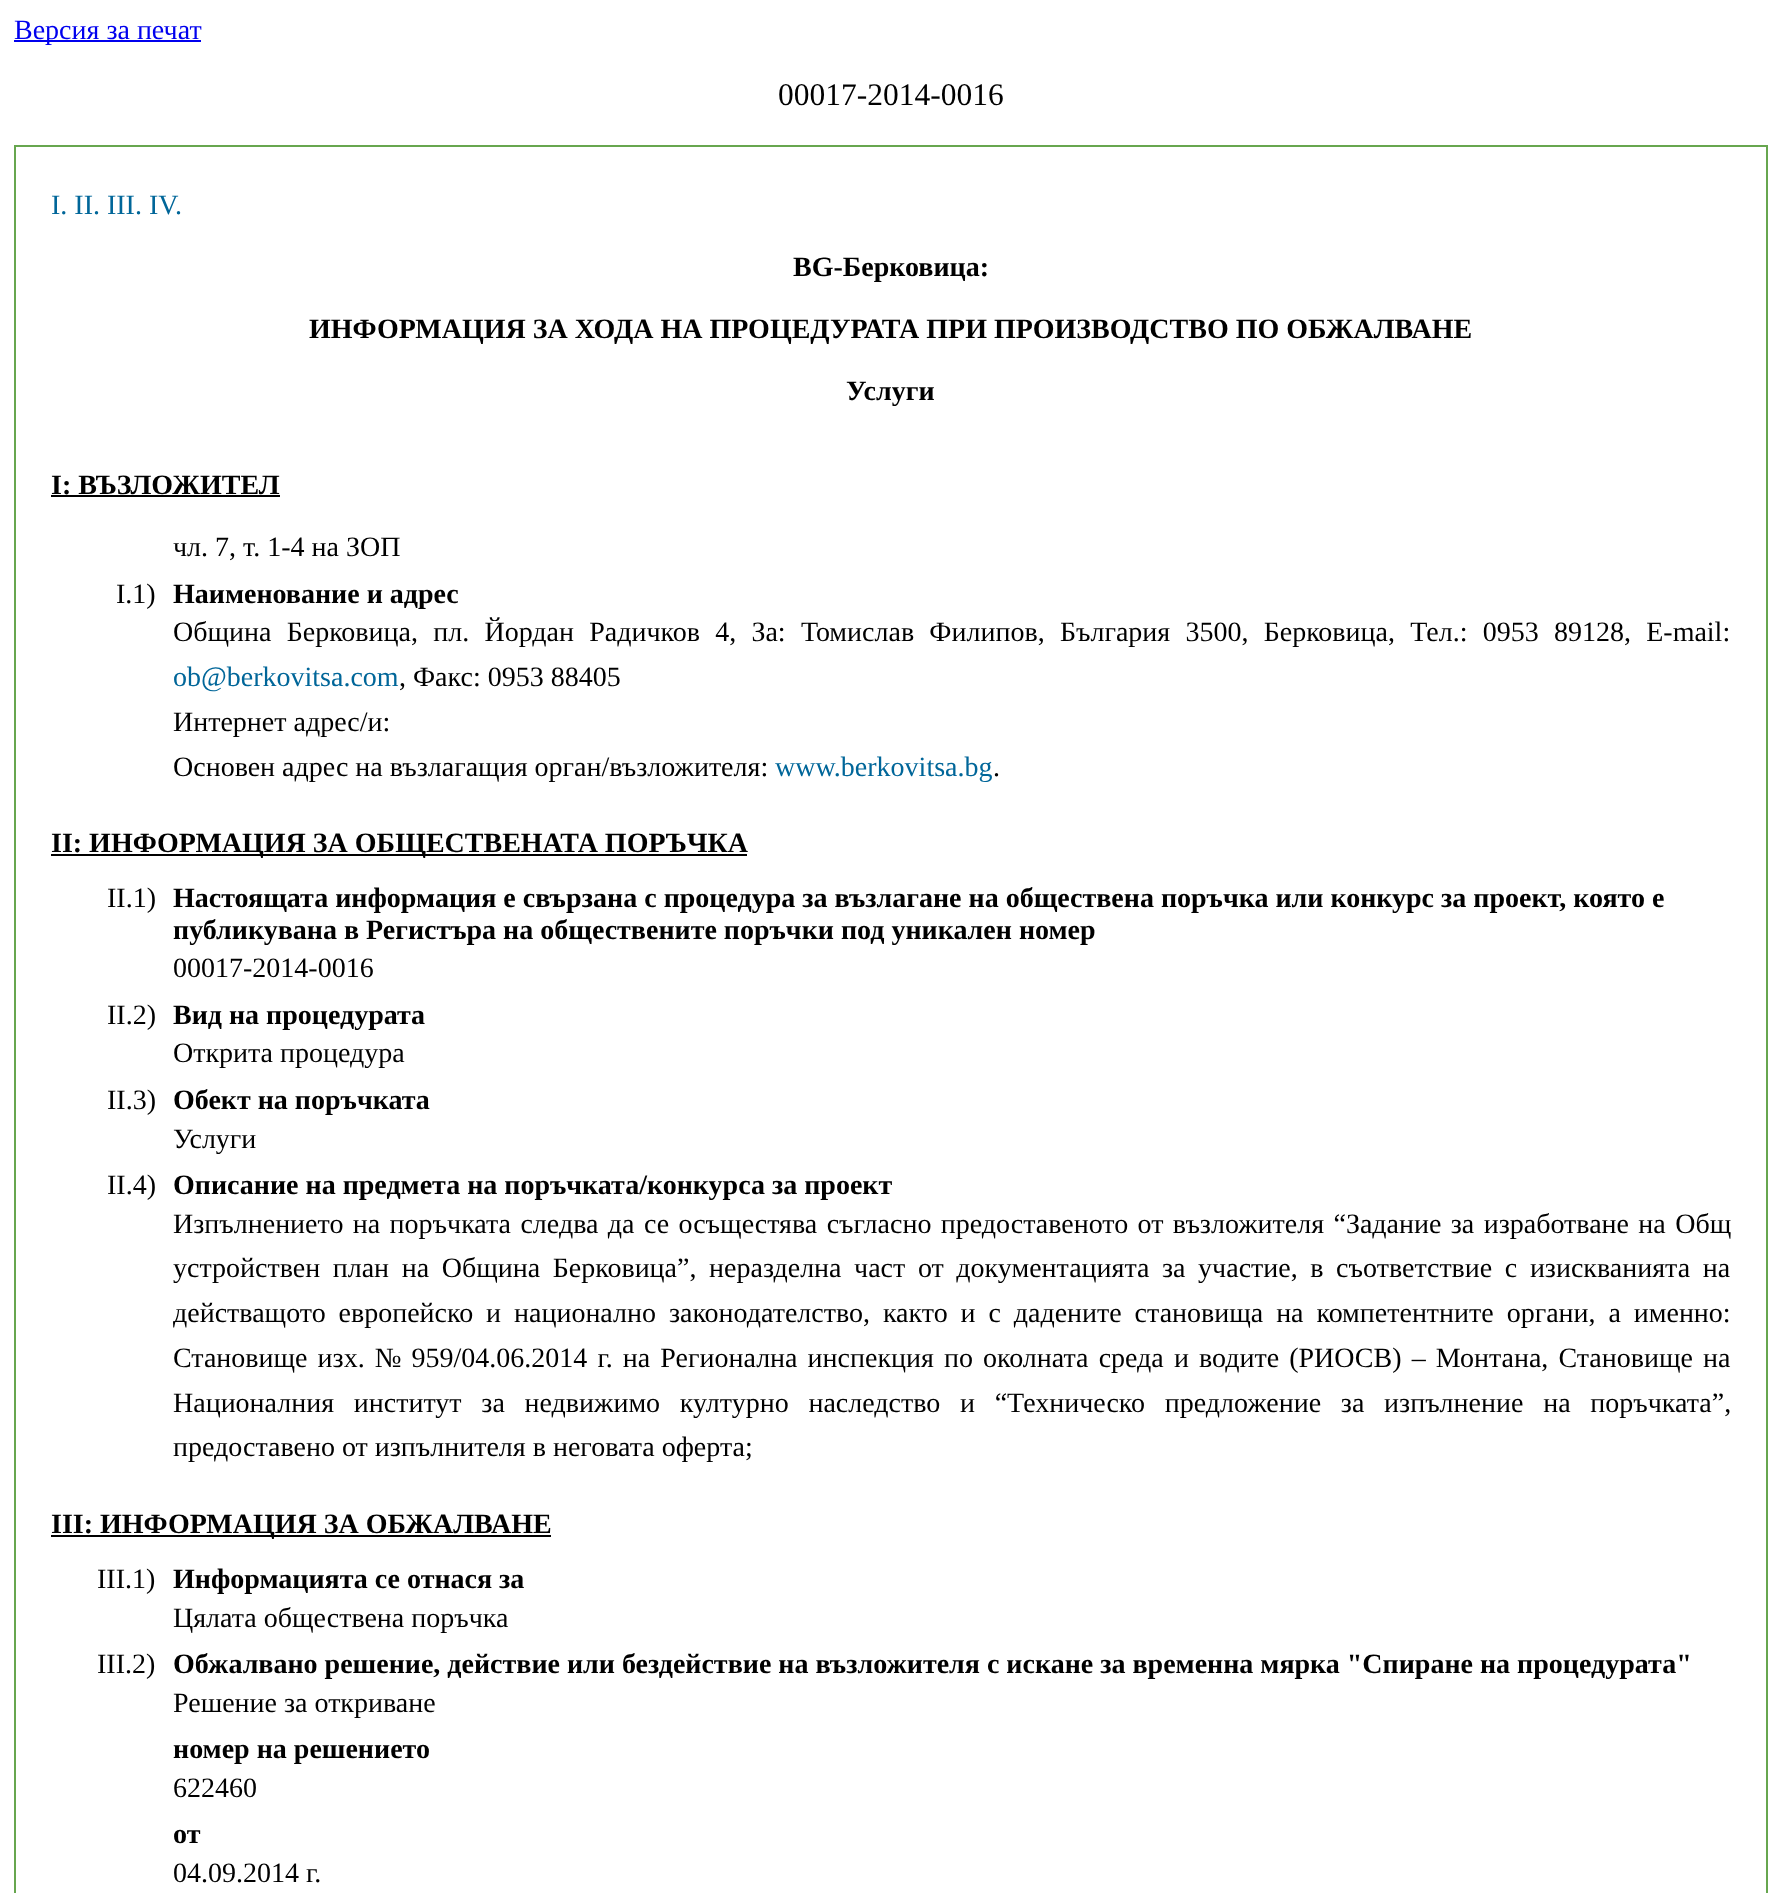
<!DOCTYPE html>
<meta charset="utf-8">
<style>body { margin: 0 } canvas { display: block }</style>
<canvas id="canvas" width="1781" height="1893"></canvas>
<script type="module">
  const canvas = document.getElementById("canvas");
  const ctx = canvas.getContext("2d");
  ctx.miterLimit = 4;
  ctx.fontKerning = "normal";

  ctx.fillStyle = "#ffffff";
  ctx.fillRect(0, 0, 1781, 1893);
  ctx.fillStyle = "#0000ee";
  ctx.fillRect(14, 40, 187, 2);
  ctx.font = "28px Liberation Serif";
  ctx.fillText("Версия за печат", 14, 39);
  ctx.font = "31.5px Liberation Serif";
  ctx.fillStyle = "#000000";
  ctx.fillText("00017-2014-0016", 778, 105);
  ctx.strokeStyle = "#67a64f";
  ctx.lineWidth = 2;
  ctx.strokeRect(15, 146, 1752, 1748);
  ctx.font = "28px Liberation Serif";
  ctx.fillStyle = "#006699";
  ctx.fillText("I. II. III. IV.", 51, 214);
  ctx.font = "bold 28px Liberation Serif";
  ctx.fillStyle = "#000000";
  ctx.fillText("BG-Берковица:", 793, 276);
  ctx.fillText("ИНФОРМАЦИЯ ЗА ХОДА НА ПРОЦЕДУРАТА ПРИ ПРОИЗВОДСТВО ПО ОБЖАЛВАНЕ", 309, 338);
  ctx.fillText("Услуги", 846, 400);
  ctx.fillText("І: ВЪЗЛОЖИТЕЛ", 51, 494);
  ctx.fillRect(51, 495, 229, 2);
  ctx.font = "28px Liberation Serif";
  ctx.fillText("чл. 7, т. 1-4 на ЗОП", 173, 556);
  ctx.fillText("I.1)", 116, 603);
  ctx.font = "bold 28px Liberation Serif";
  ctx.fillText("Наименование и адрес", 173, 603);
  ctx.wordSpacing = "8.25px";
  ctx.font = "28px Liberation Serif";
  ctx.fillText("Община Берковица, пл. Йордан Радичков 4, За: Томислав Филипов, България 3500, Берковица, Тел.: 0953 89128, E-mail:", 173, 641);
  ctx.wordSpacing = "0px";
  ctx.fillStyle = "#006699";
  ctx.fillText("ob@berkovitsa.com", 173, 686);
  ctx.fillStyle = "#000000";
  ctx.fillText(", Факс: 0953 88405", 399, 686);
  ctx.fillText("Интернет адрес/и:", 173, 731);
  ctx.fillText("Основен адрес на възлагащия орган/възложителя:", 173, 776);
  ctx.fillStyle = "#006699";
  ctx.fillText("www.berkovitsa.bg", 775, 776);
  ctx.fillStyle = "#000000";
  ctx.fillText(".", 993, 776);
  ctx.fillRect(51, 854, 696, 2);
  ctx.font = "bold 28px Liberation Serif";
  ctx.fillText("ІI: ИНФОРМАЦИЯ ЗА ОБЩЕСТВЕНАТА ПОРЪЧКА", 51, 852);
  ctx.font = "28px Liberation Serif";
  ctx.fillText("ІI.1)", 107, 907);
  ctx.font = "bold 28px Liberation Serif";
  ctx.fillText("Настоящата информация е свързана с процедура за възлагане на обществена поръчка или конкурс за проект, която е", 173, 907);
  ctx.fillText("публикувана в Регистъра на обществените поръчки под уникален номер", 173, 939);
  ctx.font = "28px Liberation Serif";
  ctx.fillText("00017-2014-0016", 173, 977);
  ctx.fillText("ІI.2)", 107, 1024);
  ctx.font = "bold 28px Liberation Serif";
  ctx.fillText("Вид на процедурата", 173, 1024);
  ctx.font = "28px Liberation Serif";
  ctx.fillText("Открита процедура", 173, 1062);
  ctx.fillText("ІI.3)", 107, 1109);
  ctx.font = "bold 28px Liberation Serif";
  ctx.fillText("Обект на поръчката", 173, 1109);
  ctx.font = "28px Liberation Serif";
  ctx.fillText("Услуги", 173, 1148);
  ctx.fillText("ІI.4)", 107, 1194);
  ctx.font = "bold 28px Liberation Serif";
  ctx.fillText("Описание на предмета на поръчката/конкурса за проект", 173, 1194);
  ctx.wordSpacing = "2.4px";
  ctx.font = "28px Liberation Serif";
  ctx.fillText("Изпълнението на поръчката следва да се осъщестява съгласно предоставеното от възложителя “Задание за изработване на Общ", 173, 1233);
  ctx.wordSpacing = "5.6px";
  ctx.fillText("устройствен план на Община Берковица”, неразделна част от документацията за участие, в съответствие с изискванията на", 173, 1277);
  ctx.wordSpacing = "5.9px";
  ctx.fillText("действащото европейско и национално законодателство, както и с дадените становища на компетентните органи, а именно:", 173, 1322);
  ctx.wordSpacing = "3.1px";
  ctx.fillText("Становище изх. № 959/04.06.2014 г. на Регионална инспекция по околната среда и водите (РИОСВ) – Монтана, Становище на", 173, 1367);
  ctx.wordSpacing = "12.75px";
  ctx.fillText("Националния институт за недвижимо културно наследство и “Техническо предложение за изпълнение на поръчката”,", 173, 1412);
  ctx.wordSpacing = "0px";
  ctx.fillText("предоставено от изпълнителя в неговата оферта;", 173, 1456);
  ctx.fillRect(51, 1535, 500, 2);
  ctx.font = "bold 28px Liberation Serif";
  ctx.fillText("IІI: ИНФОРМАЦИЯ ЗА ОБЖАЛВАНЕ", 51, 1533);
  ctx.font = "28px Liberation Serif";
  ctx.fillText("ІII.1)", 97, 1588);
  ctx.font = "bold 28px Liberation Serif";
  ctx.fillText("Информацията се отнася за", 173, 1588);
  ctx.font = "28px Liberation Serif";
  ctx.fillText("Цялата обществена поръчка", 173, 1627);
  ctx.fillText("III.2)", 97, 1673);
  ctx.font = "bold 28px Liberation Serif";
  ctx.fillText("Обжалвано решение, действие или бездействие на възложителя с искане за временна мярка \"Спиране на процедурата\"", 173, 1673);
  ctx.font = "28px Liberation Serif";
  ctx.fillText("Решение за откриване", 173, 1712);
  ctx.font = "bold 28px Liberation Serif";
  ctx.fillText("номер на решението", 173, 1758);
  ctx.font = "28px Liberation Serif";
  ctx.fillText("622460", 173, 1797);
  ctx.font = "bold 28px Liberation Serif";
  ctx.fillText("от", 173, 1843);
  ctx.font = "28px Liberation Serif";
  ctx.fillText("04.09.2014 г.", 173, 1882);
</script>
